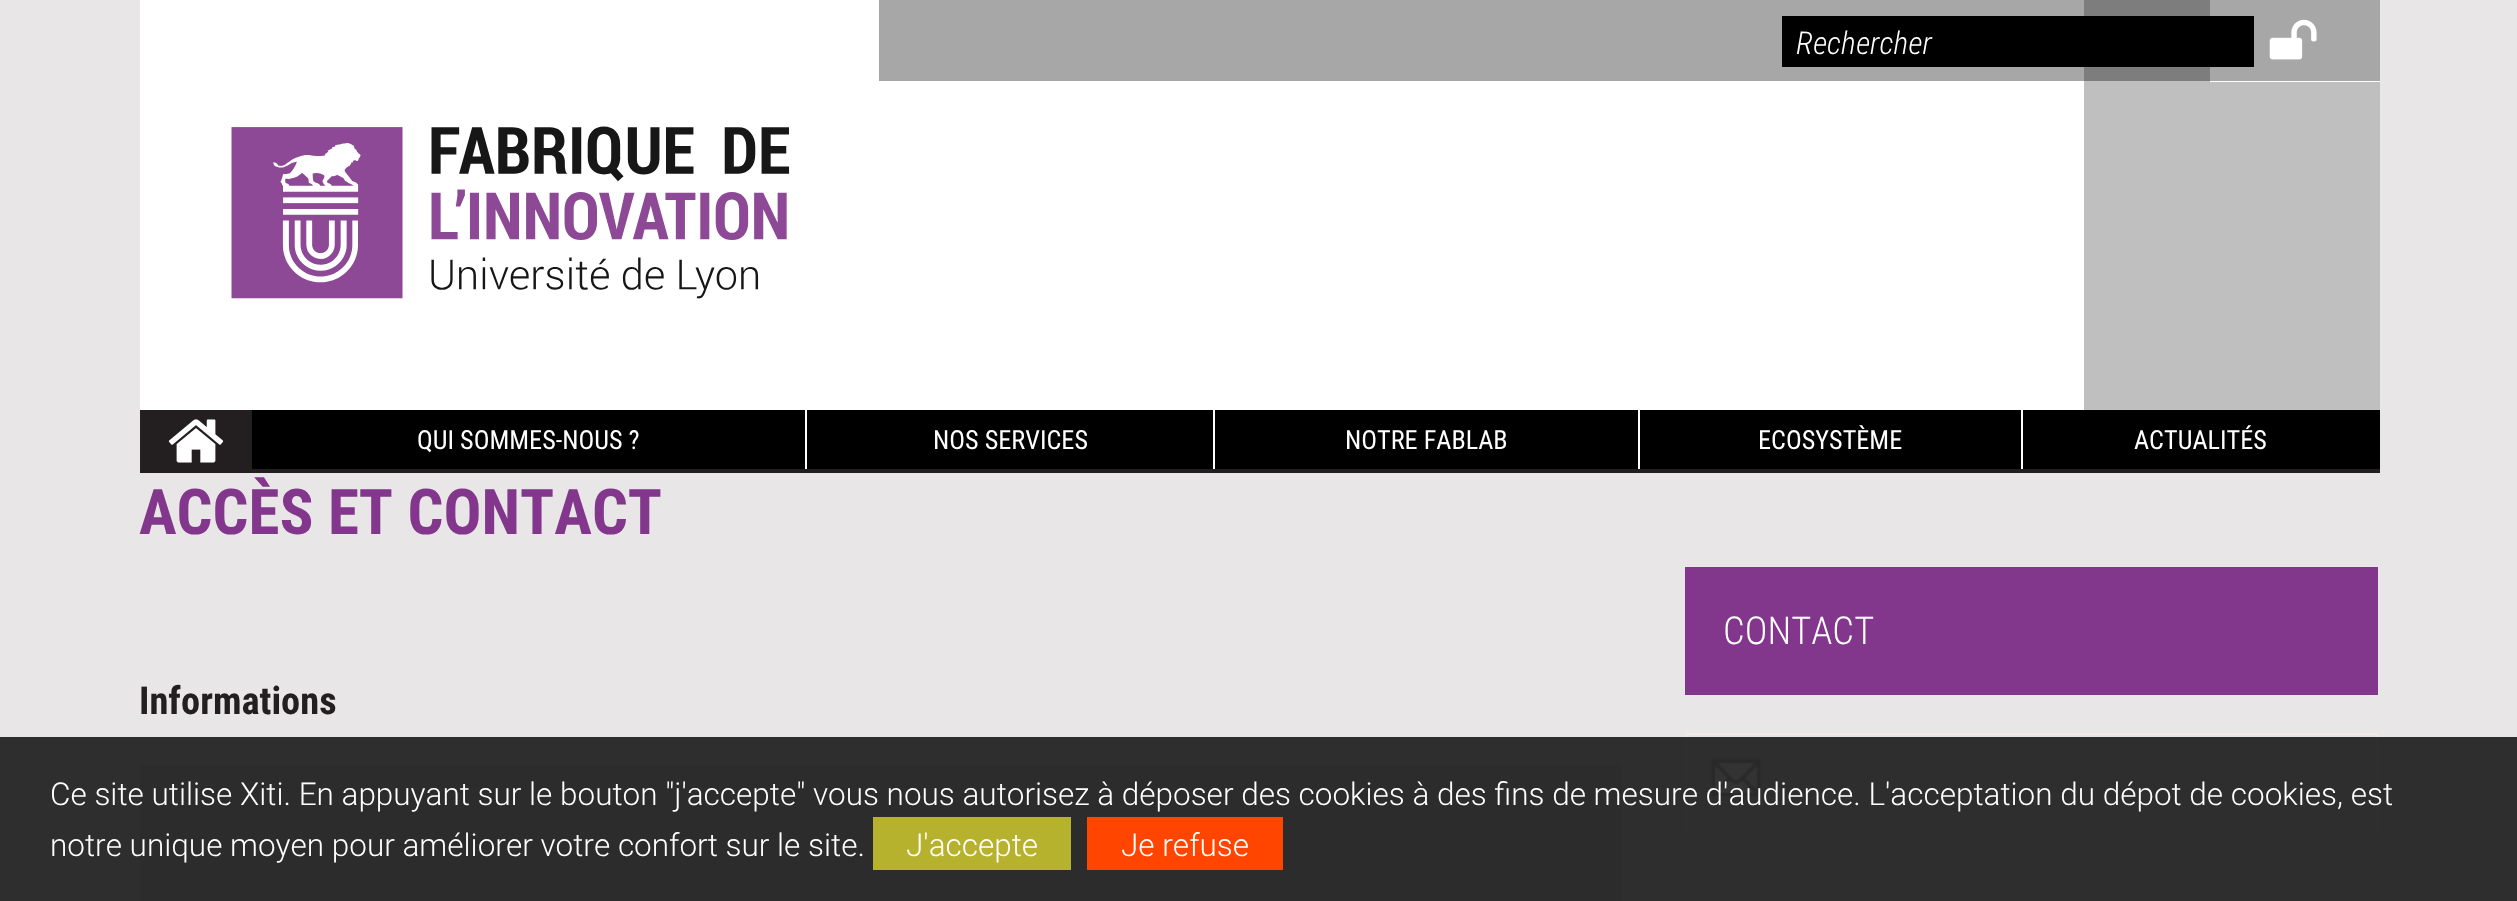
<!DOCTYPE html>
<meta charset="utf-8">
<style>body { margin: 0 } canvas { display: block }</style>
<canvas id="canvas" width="2517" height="901"></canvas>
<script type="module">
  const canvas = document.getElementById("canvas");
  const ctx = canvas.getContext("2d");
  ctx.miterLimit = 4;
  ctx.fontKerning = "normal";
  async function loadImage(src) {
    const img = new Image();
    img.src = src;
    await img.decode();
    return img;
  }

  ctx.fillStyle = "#e8e6e7";
  ctx.fillRect(0, 0, 2517, 901);
  ctx.fillStyle = "#ffffff";
  ctx.fillRect(140, 0, 2240, 410);
  ctx.fillStyle = "#bfbfbf";
  ctx.fillRect(2084, 81, 126, 1);
  ctx.fillRect(2084, 82, 296, 328);
  ctx.fillStyle = "#a7a7a7";
  ctx.fillRect(879, 0, 1501, 81);
  ctx.fillStyle = "#7d7d7d";
  ctx.fillRect(2084, 0, 126, 81);
  ctx.drawImage(await loadImage("img1.png"), 2269, 19, 48, 41);
  ctx.fillStyle = "#000000";
  ctx.fillRect(1782, 16, 472, 51);
  ctx.font = "italic 300 31.5px Roboto Condensed";
  ctx.fillStyle = "#ffffff";
  ctx.fillText("Rechercher", 1796, 54);
  ctx.drawImage(await loadImage("img2.png"), 231, 126, 559, 173);
  ctx.fillStyle = "#dddddd";
  ctx.fillRect(140, 765, 1482, 136);
  ctx.drawImage(await loadImage("img4.png"), 1711, 759, 50, 38);
  ctx.strokeStyle = "#f1ece8";
  ctx.lineWidth = 2;
  ctx.strokeRect(1686, 734, 691, 100);
  ctx.fillStyle = "rgba(0, 0, 0, 0.8)";
  ctx.fillRect(0, 737, 2517, 164);
  ctx.font = "300 31.5px Roboto";
  ctx.fillStyle = "#ffffff";
  ctx.fillText("Ce site utilise Xiti. En appuyant sur le bouton \"j'accepte\" vous nous autorisez à déposer des cookies à des fins de mesure d'audience. L'acceptation du dépot de cookies, est", 50, 805);
  ctx.fillText("notre unique moyen pour améliorer votre confort sur le site.", 50, 856);
  ctx.fillStyle = "#b7b22e";
  ctx.fillRect(873, 817, 198, 53);
  ctx.fillStyle = "#ffffff";
  ctx.fillText("J'accepte", 906, 856);
  ctx.fillStyle = "#ff4500";
  ctx.fillRect(1087, 817, 196, 53);
  ctx.fillStyle = "#ffffff";
  ctx.fillText("Je refuse", 1121, 856);
  ctx.fillStyle = "#231f20";
  ctx.fillRect(140, 410, 2240, 63);
  ctx.drawImage(await loadImage("img3.png"), 168, 419, 56, 44);
  ctx.fillStyle = "#000000";
  ctx.fillRect(252, 410, 2128, 59);
  ctx.font = "26.25px Roboto Condensed";
  ctx.fillStyle = "#ffffff";
  ctx.fillText("QUI SOMMES-NOUS ?", 417, 449);
  ctx.fillRect(805, 410, 2, 59);
  ctx.fillText("NOS SERVICES", 933, 449);
  ctx.fillRect(1213, 410, 2, 59);
  ctx.fillText("NOTRE FABLAB", 1345, 449);
  ctx.fillRect(1638, 410, 2, 59);
  ctx.fillText("ECOSYSTÈME", 1758, 449);
  ctx.fillRect(2021, 410, 2, 59);
  ctx.fillText("ACTUALITÉS", 2134, 449);
  ctx.font = "bold 63px Roboto Condensed";
  ctx.fillStyle = "#82368c";
  ctx.fillText("ACCÈS ET CONTACT", 139, 534);
  ctx.font = "bold 38.5px Roboto Condensed";
  ctx.fillStyle = "#231f20";
  ctx.fillText("Informations", 139, 714);
  ctx.fillStyle = "#82368c";
  ctx.fillRect(1685, 567, 693, 128);
  ctx.font = "300 38.5px Roboto Condensed";
  ctx.fillStyle = "#ffffff";
  ctx.fillText("CONTACT", 1723, 644);
</script>
